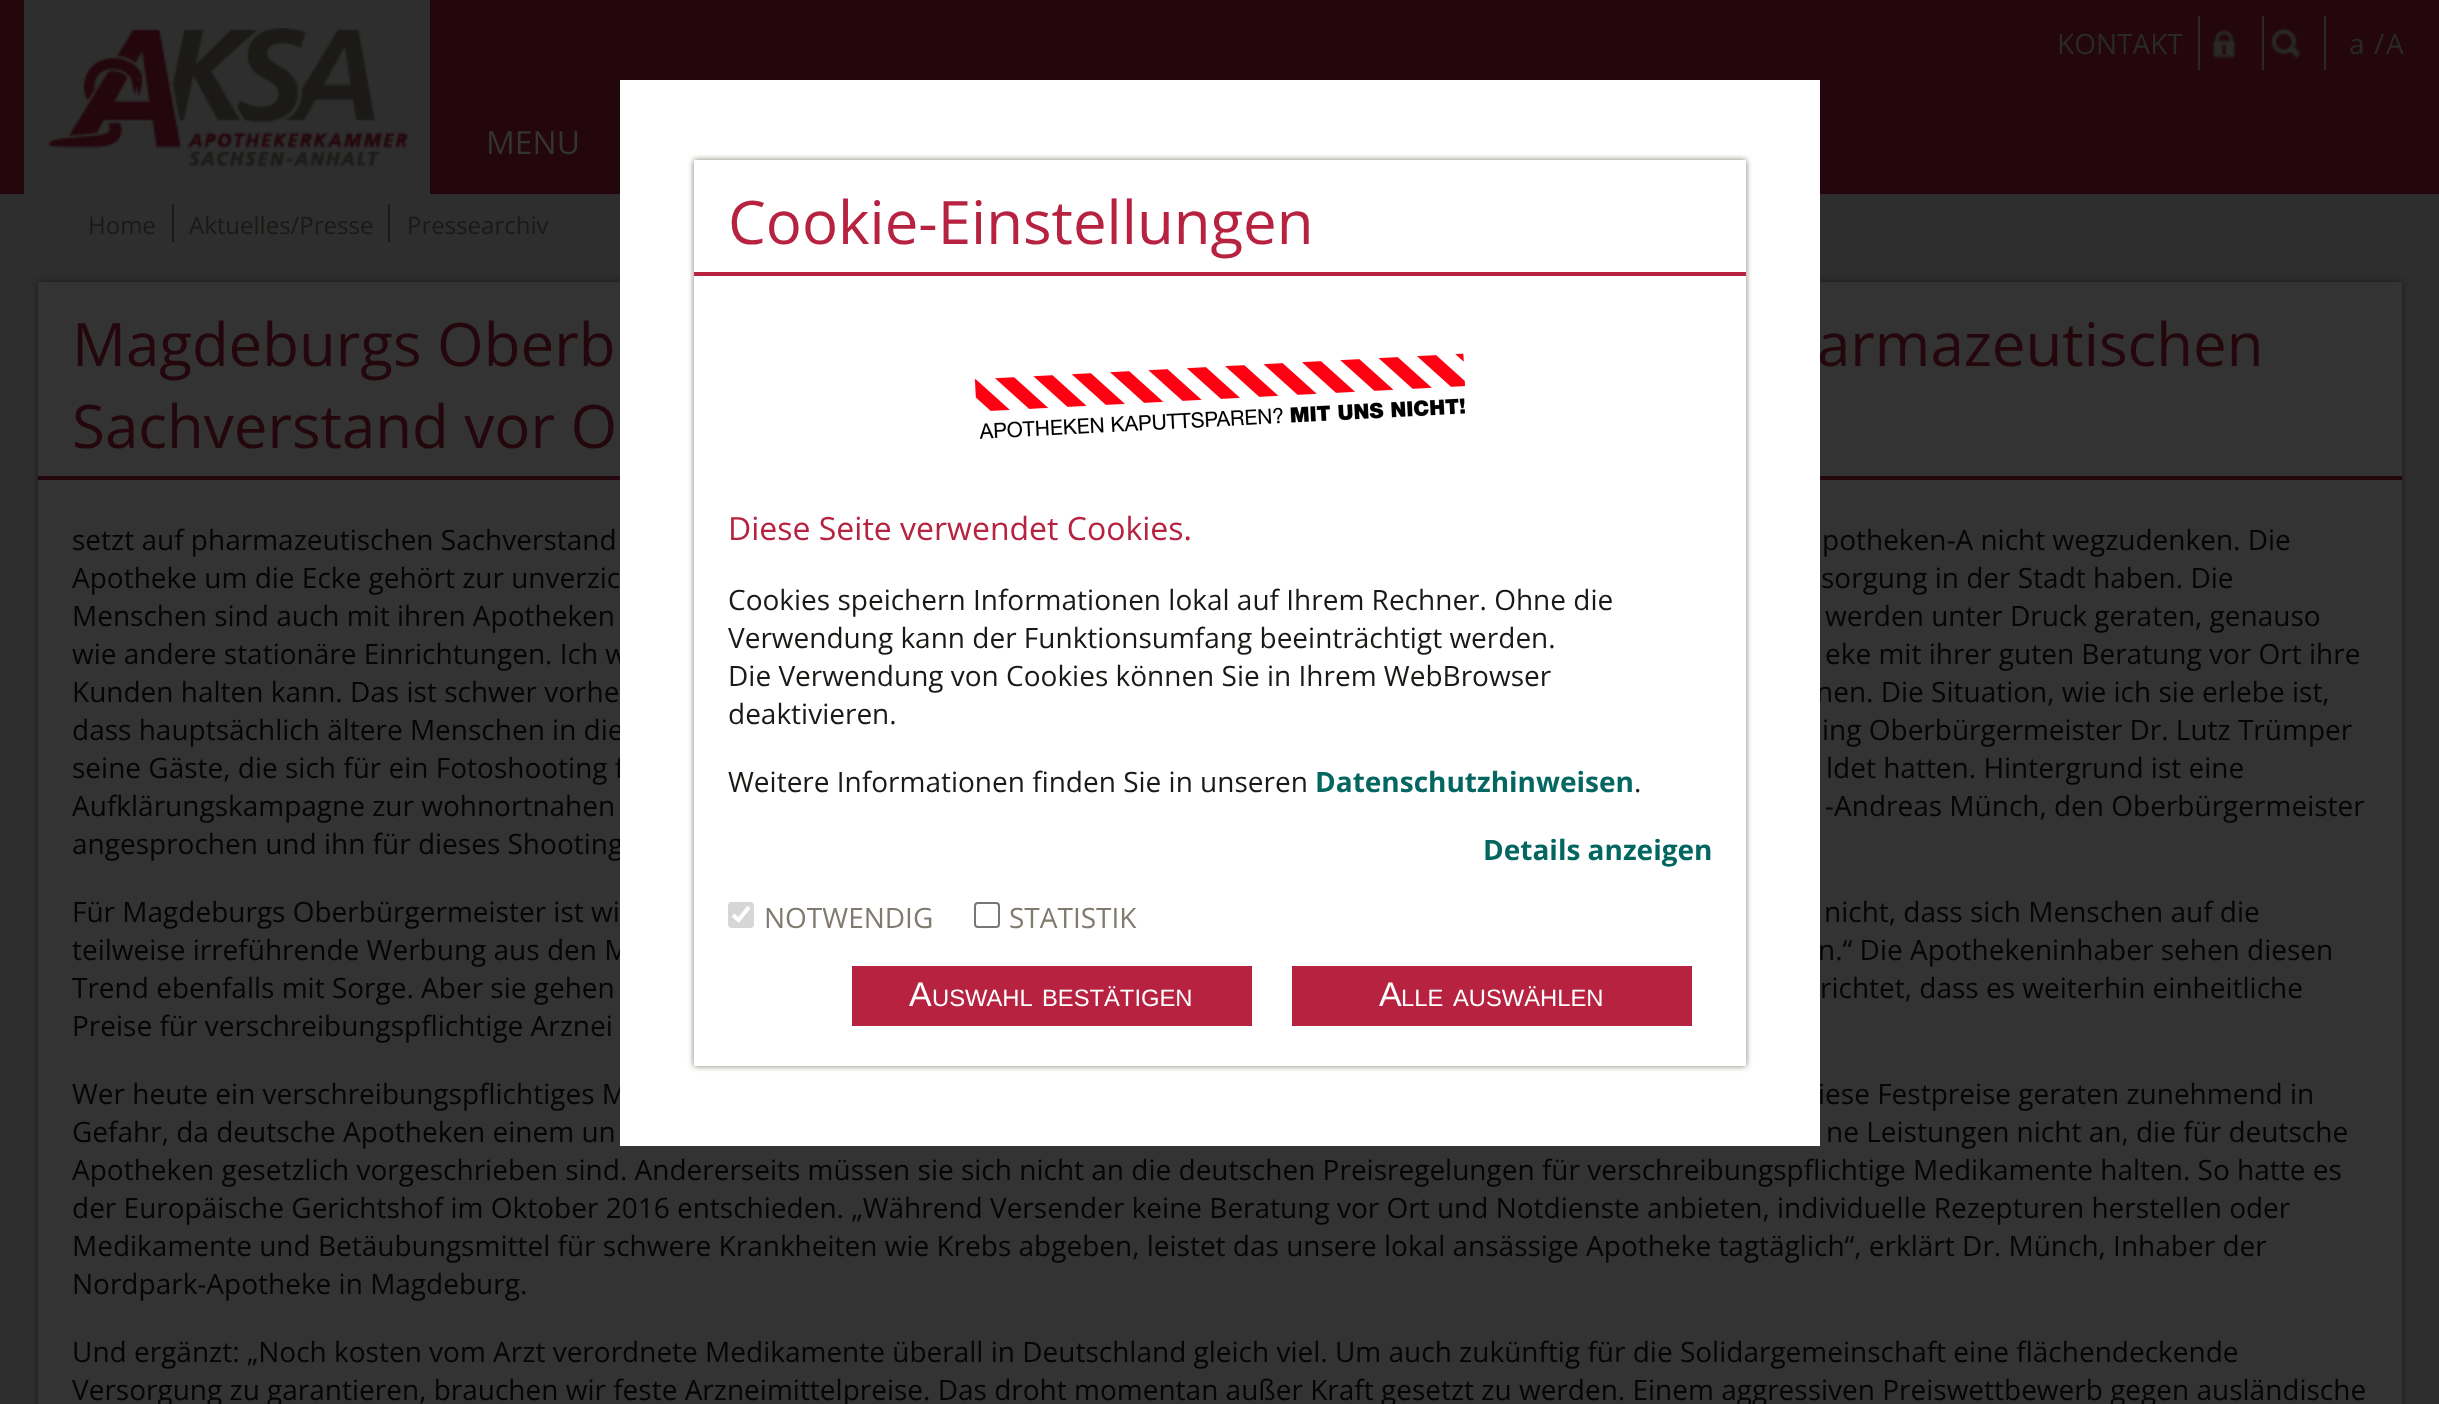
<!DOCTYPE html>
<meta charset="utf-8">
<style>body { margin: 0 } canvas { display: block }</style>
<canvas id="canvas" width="2439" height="1404"></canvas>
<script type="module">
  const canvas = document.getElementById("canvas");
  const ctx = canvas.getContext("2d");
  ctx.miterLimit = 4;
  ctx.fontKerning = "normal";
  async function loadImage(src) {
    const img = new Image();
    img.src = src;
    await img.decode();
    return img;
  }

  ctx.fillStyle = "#2e2e2e";
  ctx.fillRect(0, 0, 2439, 1404);
  ctx.fillStyle = "#24070d";
  ctx.fillRect(0, 0, 2439, 194);
  ctx.fillStyle = "#2e2e2e";
  ctx.fillRect(24, 0, 406, 194);
  ctx.drawImage(await loadImage("img1.png"), 48, 28, 360, 139);
  ctx.fillStyle = "#292929";
  ctx.fillRect(2198, 16, 2, 54);
  ctx.font = "28px Open Sans";
  ctx.fillText("KONTAKT", 2057, 54);
  ctx.drawImage(await loadImage("img2.png"), 2211, 29, 26, 30);
  ctx.fillRect(2262, 16, 2, 54);
  ctx.drawImage(await loadImage("img3.png"), 2271, 28, 30, 31);
  ctx.fillRect(2324, 16, 2, 54);
  ctx.fillText("a", 2349, 54);
  ctx.fillText("/", 2374, 54);
  ctx.fillText("A", 2386, 54);
  ctx.font = "32px Open Sans";
  ctx.fillStyle = "#333333";
  ctx.fillText("MENU", 486, 154);
  ctx.font = "24px Open Sans";
  ctx.fillStyle = "#1a1916";
  ctx.fillText("Home", 88, 234);
  ctx.fillRect(172, 204, 2, 38);
  ctx.fillText("Aktuelles/Presse", 189, 234);
  ctx.fillRect(388, 204, 2, 38);
  ctx.fillText("Pressearchiv", 407, 234);
  ctx.filter = "blur(3px)";
  ctx.beginPath();
  ctx.rect(38, 282, 2364, 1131);
  ctx.fill();
  ctx.filter = "none";
  ctx.fillStyle = "#333333";
  ctx.fillRect(38, 282, 2364, 1122);
  ctx.fillStyle = "#24070d";
  ctx.fillRect(38, 476, 2364, 4);
  ctx.font = "60px Open Sans";
  ctx.fillText("armazeutischen", 1817, 366);
  ctx.font = "28px Open Sans";
  ctx.fillStyle = "#050505";
  ctx.fillText("wie andere stationäre Einrichtungen. Ich w", 72, 664);
  ctx.fillText("nen. Die Situation, wie ich sie erlebe ist,", 1816, 702);
  ctx.fillText("dass hauptsächlich ältere Menschen in die", 72, 740);
  ctx.fillText("seine Gäste, die sich für ein Fotoshooting f", 72, 778);
  ctx.fillText("angesprochen und ihn für dieses Shooting", 72, 854);
  ctx.fillText("teilweise irreführende Werbung aus den M", 72, 960);
  ctx.fillText("Wer heute ein verschreibungspflichtiges M", 72, 1104);
  ctx.fillStyle = "#ffffff";
  ctx.fillRect(620, 80, 1200, 1066);
  ctx.save();
  ctx.beginPath();
  ctx.moveTo(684, 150);
  ctx.lineTo(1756, 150);
  ctx.lineTo(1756, 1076);
  ctx.lineTo(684, 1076);
  ctx.closePath();
  ctx.moveTo(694, 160);
  ctx.lineTo(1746, 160);
  ctx.lineTo(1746, 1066);
  ctx.lineTo(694, 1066);
  ctx.closePath();
  ctx.clip("evenodd");
  ctx.fillStyle = "#807b6e";
  ctx.filter = "blur(3px)";
  ctx.beginPath();
  ctx.rect(694, 160, 1052, 906);
  ctx.fill();
  ctx.filter = "none";
  ctx.restore();
  ctx.fillStyle = "#b62240";
  ctx.fillRect(694, 272, 1052, 4);
  ctx.font = "60px Open Sans";
  ctx.fillText("Cookie-Einstellungen", 728, 244);
  ctx.drawImage(await loadImage("img4.png"), 974, 353, 492, 86);
  ctx.font = "32px Open Sans";
  ctx.fillText("Diese Seite verwendet Cookies.", 728, 540);
  ctx.font = "28px Open Sans";
  ctx.fillStyle = "#1a1916";
  ctx.fillText("Cookies speichern Informationen lokal auf Ihrem Rechner. Ohne die", 728, 610);
  ctx.fillText("Verwendung kann der Funktionsumfang beeinträchtigt werden.", 728, 648);
  ctx.fillText("Die Verwendung von Cookies können Sie in Ihrem WebBrowser", 728, 686);
  ctx.fillText("deaktivieren.", 728, 724);
  ctx.fillText("Weitere Informationen finden Sie in unseren", 728, 792);
  ctx.font = "bold 28px Open Sans";
  ctx.fillStyle = "#036661";
  ctx.fillText("Datenschutzhinweisen", 1315, 792);
  ctx.font = "28px Open Sans";
  ctx.fillStyle = "#1a1916";
  ctx.fillText(".", 1634, 792);
  ctx.font = "bold 28px Open Sans";
  ctx.fillStyle = "#036661";
  ctx.fillText("Details anzeigen", 1483, 860);
  ctx.fillStyle = "#d6d6d6";
  ctx.beginPath();
  ctx.roundRect(728, 902, 26, 26, 4);
  ctx.fill();
  ctx.beginPath();
  ctx.moveTo(733, 915);
  ctx.lineTo(738.5, 920);
  ctx.lineTo(749, 907);
  ctx.strokeStyle = "#ffffff";
  ctx.lineWidth = 4.2;
  ctx.stroke();
  ctx.font = "28px Open Sans";
  ctx.fillStyle = "#807b6e";
  ctx.fillText("NOTWENDIG", 764, 928);
  ctx.beginPath();
  ctx.roundRect(975, 903, 24, 24, 3);
  ctx.strokeStyle = "#767676";
  ctx.lineWidth = 2;
  ctx.stroke();
  ctx.fillText("STATISTIK", 1009, 928);
  ctx.fillStyle = "#b62240";
  ctx.fillRect(852, 966, 400, 60);
  ctx.font = "34px Liberation Sans";
  ctx.fillStyle = "#ffffff";
  ctx.fillText("A", 909, 1006);
  ctx.font = "23.75px Liberation Sans";
  ctx.fillText("USWAHL", 932, 1006);
  ctx.fillText("BESTÄTIGEN", 1042, 1006);
  ctx.fillStyle = "#b62240";
  ctx.fillRect(1292, 966, 400, 60);
  ctx.font = "34px Liberation Sans";
  ctx.fillStyle = "#ffffff";
  ctx.fillText("A", 1379, 1006);
  ctx.font = "23.75px Liberation Sans";
  ctx.fillText("LLE", 1401, 1006);
  ctx.fillText("AUSWÄHLEN", 1453, 1006);
  ctx.font = "60px Open Sans";
  ctx.fillStyle = "#24070d";
  ctx.fillText("Magdeburgs Oberb", 72, 366);
  ctx.fillText("Sachverstand vor O", 72, 448);
  ctx.font = "28px Open Sans";
  ctx.fillStyle = "#050505";
  ctx.fillText("setzt auf pharmazeutischen Sachverstand", 72, 550);
  ctx.fillText("potheken-A nicht wegzudenken. Die", 1822, 550);
  ctx.fillText("Apotheke um die Ecke gehört zur unverzic", 72, 588);
  ctx.fillText("sorgung in der Stadt haben. Die", 1821, 588);
  ctx.fillText("Menschen sind auch mit ihren Apotheken", 72, 626);
  ctx.fillText("werden unter Druck geraten, genauso", 1825, 626);
  ctx.fillText("eke mit ihrer guten Beratung vor Ort ihre", 1825, 664);
  ctx.fillText("Kunden halten kann. Das ist schwer vorhe", 72, 702);
  ctx.fillText("ing Oberbürgermeister Dr. Lutz Trümper", 1822, 740);
  ctx.fillText("ldet hatten. Hintergrund ist eine", 1826, 778);
  ctx.fillText("Aufklärungskampagne zur wohnortnahen", 72, 816);
  ctx.fillText("-Andreas Münch, den Oberbürgermeister", 1825, 816);
  ctx.fillText("Für Magdeburgs Oberbürgermeister ist wi", 72, 922);
  ctx.fillText("nicht, dass sich Menschen auf die", 1824, 922);
  ctx.fillText("n.“ Die Apothekeninhaber sehen diesen", 1818, 960);
  ctx.fillText("Trend ebenfalls mit Sorge. Aber sie gehen", 72, 998);
  ctx.fillText("richtet, dass es weiterhin einheitliche", 1820, 998);
  ctx.fillText("Preise für verschreibungspflichtige Arznei", 72, 1036);
  ctx.fillText("iese Festpreise geraten zunehmend in", 1818, 1104);
  ctx.fillText("Gefahr, da deutsche Apotheken einem un", 72, 1142);
  ctx.fillText("ne Leistungen nicht an, die für deutsche", 1826, 1142);
  ctx.fillText("Apotheken gesetzlich vorgeschrieben sind. Andererseits müssen sie sich nicht an die deutschen Preisregelungen für verschreibungspflichtige Medikamente halten. So hatte es", 72, 1180);
  ctx.fillText("der Europäische Gerichtshof im Oktober 2016 entschieden. „Während Versender keine Beratung vor Ort und Notdienste anbieten, individuelle Rezepturen herstellen oder", 72, 1218);
  ctx.fillText("Medikamente und Betäubungsmittel für schwere Krankheiten wie Krebs abgeben, leistet das unsere lokal ansässige Apotheke tagtäglich“, erklärt Dr. Münch, Inhaber der", 72, 1256);
  ctx.fillText("Nordpark-Apotheke in Magdeburg.", 72, 1294);
  ctx.fillText("Und ergänzt: „Noch kosten vom Arzt verordnete Medikamente überall in Deutschland gleich viel. Um auch zukünftig für die Solidargemeinschaft eine flächendeckende", 72, 1362);
  ctx.fillText("Versorgung zu garantieren, brauchen wir feste Arzneimittelpreise. Das droht momentan außer Kraft gesetzt zu werden. Einem aggressiven Preiswettbewerb gegen ausländische", 72, 1400);
</script>
